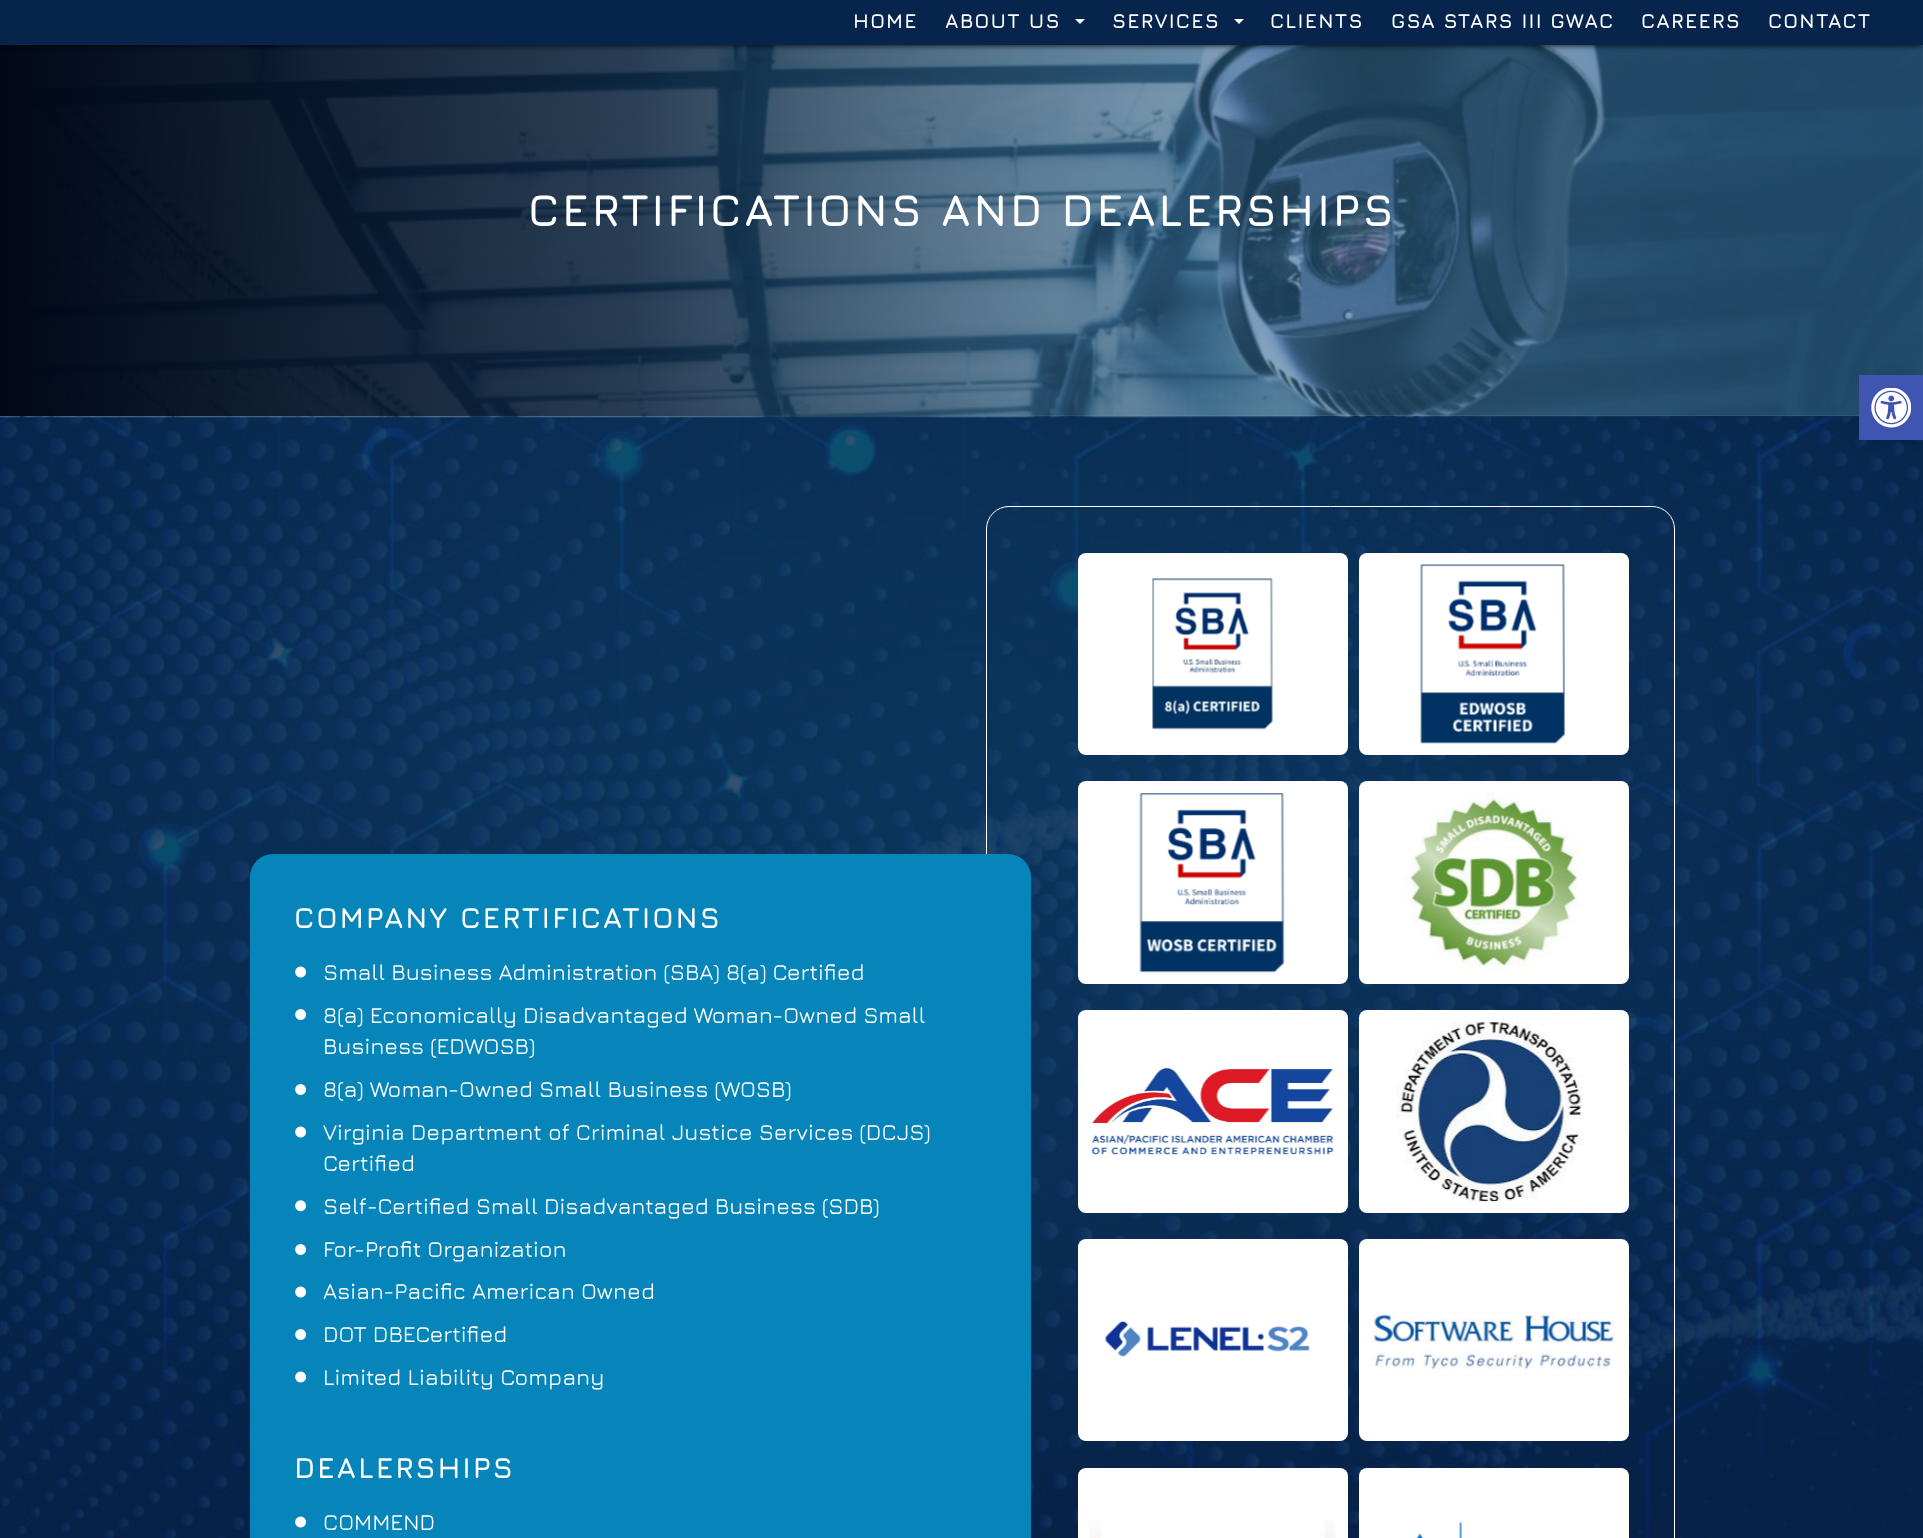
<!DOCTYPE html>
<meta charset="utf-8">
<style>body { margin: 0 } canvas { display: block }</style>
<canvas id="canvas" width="1923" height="1538"></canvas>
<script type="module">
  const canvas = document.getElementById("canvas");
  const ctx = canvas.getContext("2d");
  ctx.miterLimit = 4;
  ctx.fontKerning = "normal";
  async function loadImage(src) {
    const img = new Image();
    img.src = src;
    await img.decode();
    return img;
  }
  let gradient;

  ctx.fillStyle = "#ffffff";
  ctx.fillRect(0, 0, 1923, 1538);
  ctx.drawImage(await loadImage("img2.png"), 0, 416, 1923, 1122);
  ctx.drawImage(await loadImage("img1.png"), 0, 45, 1923, 373);
  gradient = ctx.createLinearGradient(0, 209, 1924, 209);
  gradient.addColorStop(0, "#010819");
  gradient.addColorStop(0.33, "rgba(3, 28, 54, 0.84)");
  gradient.addColorStop(0.67, "rgba(35, 93, 135, 0.53)");
  gradient.addColorStop(1, "rgba(35, 93, 135, 0.66)");
  ctx.fillStyle = gradient;
  ctx.fillRect(0, 45, 1923, 371);
  ctx.fillStyle = "#000000";
  ctx.filter = "blur(3px)";
  ctx.beginPath();
  ctx.rect(3, 5, 1918, 40);
  ctx.fill();
  ctx.filter = "none";
  ctx.fillStyle = "#07244d";
  ctx.fillRect(0, 0, 1923, 45);
  ctx.letterSpacing = "1.25px";
  ctx.font = "bold 20.25px Jura";
  ctx.fillStyle = "#ffffff";
  ctx.fillText("HOME", 853, 28);
  ctx.fillText("ABOUT US", 945, 28);
  ctx.beginPath();
  ctx.moveTo(1075, 19);
  ctx.lineTo(1085, 19);
  ctx.lineTo(1080, 24);
  ctx.closePath();
  ctx.fill();
  ctx.fillText("SERVICES", 1112, 28);
  ctx.beginPath();
  ctx.moveTo(1234, 19);
  ctx.lineTo(1244, 19);
  ctx.lineTo(1239, 24);
  ctx.closePath();
  ctx.fill();
  ctx.fillText("CLIENTS", 1270, 28);
  ctx.fillText("GSA STARS III GWAC", 1391, 28);
  ctx.fillText("CAREERS", 1641, 28);
  ctx.fillText("CONTACT", 1768, 28);
  ctx.letterSpacing = "2.5px";
  ctx.font = "bold 45px Jura";
  ctx.fillText("CERTIFICATIONS AND DEALERSHIPS", 528, 226);
  ctx.beginPath();
  ctx.roundRect(986.5, 506.5, 688, 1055, 22.5);
  ctx.strokeStyle = "#ffffff";
  ctx.stroke();
  ctx.fillStyle = "#0585ba";
  ctx.beginPath();
  ctx.roundRect(250, 854, 781, 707, 23);
  ctx.fill();
  ctx.letterSpacing = "1.9px";
  ctx.font = "bold 29.25px Jura";
  ctx.fillStyle = "#ffffff";
  ctx.fillText("COMPANY CERTIFICATIONS", 294, 928);
  ctx.drawImage(await loadImage("img3.png"), 295, 966, 12, 12);
  ctx.letterSpacing = "0px";
  ctx.font = "500 22.5px Jura";
  ctx.fillText("Small Business Administration (SBA) 8(a) Certified", 323, 980);
  ctx.drawImage(await loadImage("img4.png"), 295, 1009, 12, 11);
  ctx.fillText("8(a) Economically Disadvantaged Woman-Owned Small", 323, 1023);
  ctx.fillText("Business (EDWOSB)", 323, 1054);
  ctx.drawImage(await loadImage("img4.png"), 295, 1084, 12, 11);
  ctx.fillText("8(a) Woman-Owned Small Business (WOSB)", 323, 1097);
  ctx.drawImage(await loadImage("img3.png"), 295, 1126, 12, 12);
  ctx.fillText("Virginia Department of Criminal Justice Services (DCJS)", 323, 1140);
  ctx.fillText("Certified", 323, 1171);
  ctx.drawImage(await loadImage("img5.png"), 295, 1200, 12, 12);
  ctx.fillText("Self-Certified Small Disadvantaged Business (SDB)", 323, 1214);
  ctx.drawImage(await loadImage("img4.png"), 295, 1244, 12, 11);
  ctx.fillText("For-Profit Organization", 323, 1257);
  ctx.drawImage(await loadImage("img3.png"), 295, 1286, 12, 12);
  ctx.fillText("Asian-Pacific American Owned", 323, 1299);
  ctx.drawImage(await loadImage("img4.png"), 295, 1329, 12, 11);
  ctx.fillText("DOT DBECertified", 323, 1342);
  ctx.drawImage(await loadImage("img3.png"), 295, 1371, 12, 12);
  ctx.fillText("Limited Liability Company", 323, 1385);
  ctx.letterSpacing = "1.9px";
  ctx.font = "bold 29.25px Jura";
  ctx.fillText("DEALERSHIPS", 294, 1478);
  ctx.drawImage(await loadImage("img3.png"), 295, 1516, 12, 12);
  ctx.letterSpacing = "0px";
  ctx.font = "500 22.5px Jura";
  ctx.fillText("COMMEND", 323, 1530);
  ctx.beginPath();
  ctx.roundRect(1078, 553, 270, 202, 8);
  ctx.fill();
  ctx.drawImage(await loadImage("img6.png"), 1152, 578, 122, 152);
  ctx.beginPath();
  ctx.roundRect(1359, 553, 270, 202, 8);
  ctx.fill();
  ctx.drawImage(await loadImage("img7.png"), 1420, 564, 146, 180);
  ctx.beginPath();
  ctx.roundRect(1078, 781, 270, 203, 8);
  ctx.fill();
  ctx.drawImage(await loadImage("img8.png"), 1139, 793, 146, 180);
  ctx.beginPath();
  ctx.roundRect(1359, 781, 270, 203, 8);
  ctx.fill();
  ctx.drawImage(await loadImage("img9.png"), 1404, 792, 180, 180);
  ctx.beginPath();
  ctx.roundRect(1078, 1010, 270, 203, 8);
  ctx.fill();
  ctx.drawImage(await loadImage("img10.png"), 1091, 1067, 243, 88);
  ctx.beginPath();
  ctx.roundRect(1359, 1010, 270, 203, 8);
  ctx.fill();
  ctx.drawImage(await loadImage("img11.png"), 1396, 1021, 188, 181);
  ctx.beginPath();
  ctx.roundRect(1078, 1239, 270, 202, 8);
  ctx.fill();
  ctx.drawImage(await loadImage("img12.png"), 1104, 1321, 206, 36);
  ctx.beginPath();
  ctx.roundRect(1359, 1239, 270, 202, 8);
  ctx.fill();
  ctx.drawImage(await loadImage("img13.png"), 1371, 1311, 246, 59);
  ctx.beginPath();
  ctx.roundRect(1078, 1468, 270, 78, 8);
  ctx.fill();
  ctx.drawImage(await loadImage("img14.png"), 1089, 1520, 247, 18);
  ctx.beginPath();
  ctx.roundRect(1359, 1468, 270, 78, 8);
  ctx.fill();
  ctx.drawImage(await loadImage("img15.png"), 1416, 1522, 46, 16);
  ctx.fillStyle = "rgba(0, 0, 0, 0.1)";
  ctx.filter = "blur(6px)";
  ctx.beginPath();
  ctx.rect(1859, 375, 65, 65);
  ctx.fill();
  ctx.filter = "none";
  ctx.fillStyle = "#4054b2";
  ctx.fillRect(1859, 375, 64, 65);
  ctx.drawImage(await loadImage("img16.png"), 1871, 388, 40, 40);
</script>
